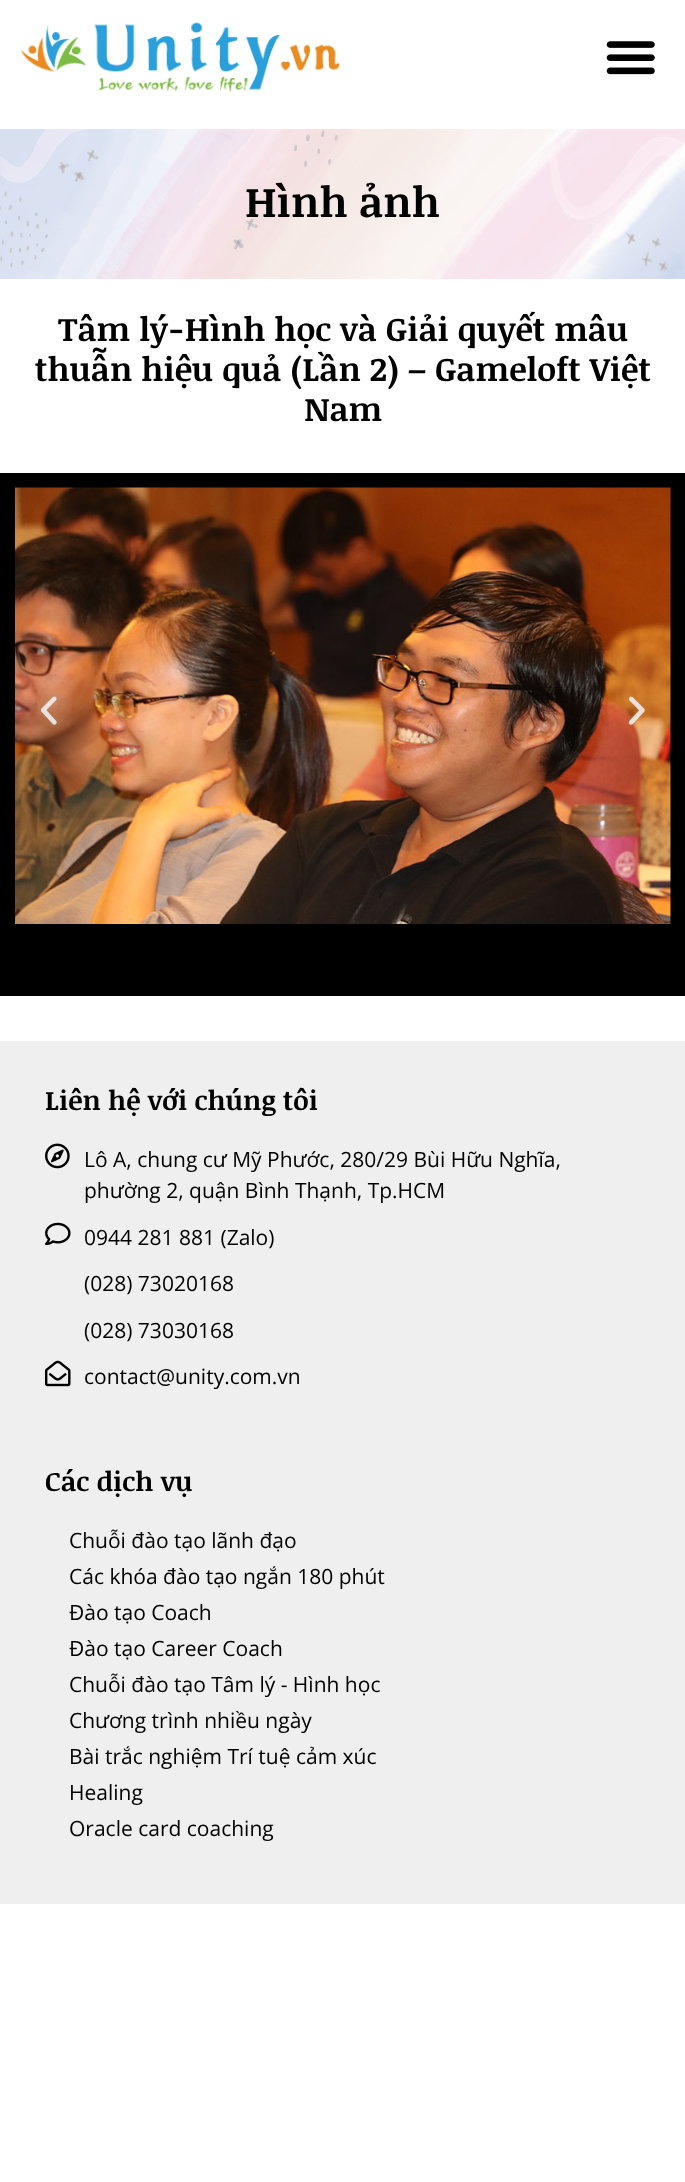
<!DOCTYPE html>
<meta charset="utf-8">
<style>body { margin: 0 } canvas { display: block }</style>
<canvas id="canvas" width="685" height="2182"></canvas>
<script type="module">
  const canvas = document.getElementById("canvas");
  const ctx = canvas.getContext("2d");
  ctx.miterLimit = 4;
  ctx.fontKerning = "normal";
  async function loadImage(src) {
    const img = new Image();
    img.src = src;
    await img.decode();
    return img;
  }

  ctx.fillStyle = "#ffffff";
  ctx.fillRect(0, 0, 685, 2182);
  ctx.drawImage(await loadImage("img1.png"), 20, 22, 320, 71);
  ctx.drawImage(await loadImage("img2.png"), 606, 41, 49, 34);
  ctx.drawImage(await loadImage("img3.png"), 0, 129, 685, 150);
  ctx.font = "bold 42px Noticia Text";
  ctx.fillStyle = "#000000";
  ctx.fillText("Hình ảnh", 245, 217);
  ctx.font = "bold 33px Noticia Text";
  ctx.fillText("Tâm lý-Hình học và Giải quyết mâu", 58, 341);
  ctx.fillText("thuẫn hiệu quả (Lần 2) – Gameloft Việt", 35, 381);
  ctx.fillText("Nam", 304, 421);
  ctx.fillRect(0, 473, 685, 523);
  ctx.drawImage(await loadImage("img4.png"), 15, 487, 656, 437);
  ctx.drawImage(await loadImage("img5.png"), 41, 696, 16, 29);
  ctx.drawImage(await loadImage("img6.png"), 628, 696, 17, 29);
  ctx.fillStyle = "#efefef";
  ctx.fillRect(0, 1041, 685, 863);
  ctx.font = "bold 27px Noticia Text";
  ctx.fillStyle = "#000000";
  ctx.fillText("Liên hệ với chúng tôi", 45, 1110);
  ctx.drawImage(await loadImage("img7.png"), 45, 1143, 25, 26);
  ctx.font = "21px Open Sans";
  ctx.fillText("Lô A, chung cư Mỹ Phước, 280/29 Bùi Hữu Nghĩa,", 84, 1167);
  ctx.fillText("phường 2, quận Bình Thạnh, Tp.HCM", 84, 1198);
  ctx.drawImage(await loadImage("img8.png"), 45, 1222, 26, 24);
  ctx.fillText("0944 281 881 (Zalo)", 84, 1245);
  ctx.fillText("(028) 73020168", 84, 1291);
  ctx.fillText("(028) 73030168", 84, 1338);
  ctx.drawImage(await loadImage("img9.png"), 45, 1360, 26, 27);
  ctx.fillText("contact@unity.com.vn", 84, 1384);
  ctx.font = "bold 27px Noticia Text";
  ctx.fillText("Các dịch vụ", 45, 1491);
  ctx.font = "21px Open Sans";
  ctx.fillText("Chuỗi đào tạo lãnh đạo", 69, 1548);
  ctx.fillText("Các khóa đào tạo ngắn 180 phút", 69, 1584);
  ctx.fillText("Đào tạo Coach", 69, 1620);
  ctx.fillText("Đào tạo Career Coach", 69, 1656);
  ctx.fillText("Chuỗi đào tạo Tâm lý - Hình học", 69, 1692);
  ctx.fillText("Chương trình nhiều ngày", 69, 1728);
  ctx.fillText("Bài trắc nghiệm Trí tuệ cảm xúc", 69, 1764);
  ctx.fillText("Healing", 69, 1800);
  ctx.fillText("Oracle card coaching", 69, 1836);
</script>
